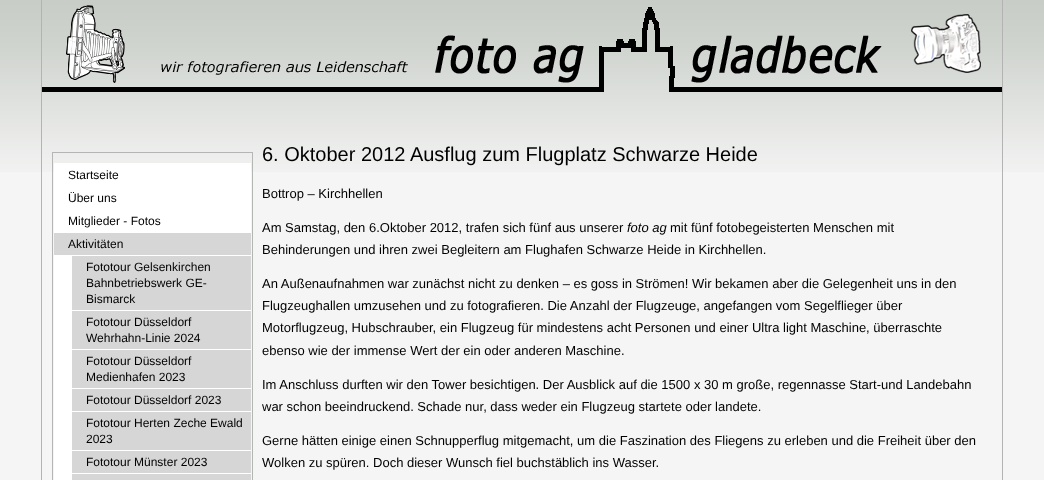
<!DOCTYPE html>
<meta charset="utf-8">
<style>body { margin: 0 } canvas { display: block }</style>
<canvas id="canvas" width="1044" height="480"></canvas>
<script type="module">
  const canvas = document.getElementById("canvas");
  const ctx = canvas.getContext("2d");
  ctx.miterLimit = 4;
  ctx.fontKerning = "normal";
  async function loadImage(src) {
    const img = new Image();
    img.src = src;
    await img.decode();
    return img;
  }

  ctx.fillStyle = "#f5f5f5";
  ctx.fillRect(0, 0, 1044, 480);
  ctx.drawImage(await loadImage("img1.png"), 0, 0, 1044, 172);
  ctx.fillStyle = "#b3b3b3";
  ctx.fillRect(1002, 0, 1, 480);
  ctx.fillRect(41, 0, 1, 480);
  ctx.drawImage(await loadImage("img2.png"), 42, 5, 960, 87);
  ctx.strokeStyle = "#b3b6b3";
  ctx.strokeRect(52.5, 152.5, 200, 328);
  ctx.fillStyle = "#ffffff";
  ctx.fillRect(54, 163, 197, 70);
  ctx.font = "12px Liberation Sans";
  ctx.fillStyle = "#000000";
  ctx.fillText("Startseite", 68, 179);
  ctx.fillText("Über uns", 68, 202);
  ctx.fillText("Mitglieder - Fotos", 68, 225);
  ctx.fillStyle = "#d6d6d6";
  ctx.fillRect(54, 233, 197, 22);
  ctx.fillStyle = "#000000";
  ctx.fillText("Aktivitäten", 68, 248);
  ctx.fillStyle = "#ffffff";
  ctx.fillRect(54, 255, 18, 225);
  ctx.fillStyle = "#d6d6d6";
  ctx.fillRect(72, 256, 179, 54);
  ctx.fillStyle = "#ffffff";
  ctx.fillRect(72, 255, 179, 1);
  ctx.fillStyle = "#000000";
  ctx.fillText("Fototour Gelsenkirchen", 86, 271);
  ctx.fillText("Bahnbetriebswerk GE-", 86, 287);
  ctx.fillText("Bismarck", 86, 303);
  ctx.fillStyle = "#d6d6d6";
  ctx.fillRect(72, 311, 179, 38);
  ctx.fillStyle = "#ffffff";
  ctx.fillRect(72, 310, 179, 1);
  ctx.fillStyle = "#000000";
  ctx.fillText("Fototour Düsseldorf", 86, 326);
  ctx.fillText("Wehrhahn-Linie 2024", 86, 342);
  ctx.fillStyle = "#d6d6d6";
  ctx.fillRect(72, 350, 179, 38);
  ctx.fillStyle = "#ffffff";
  ctx.fillRect(72, 349, 179, 1);
  ctx.fillStyle = "#000000";
  ctx.fillText("Fototour Düsseldorf", 86, 365);
  ctx.fillText("Medienhafen 2023", 86, 381);
  ctx.fillStyle = "#d6d6d6";
  ctx.fillRect(72, 389, 179, 22);
  ctx.fillStyle = "#ffffff";
  ctx.fillRect(72, 388, 179, 1);
  ctx.fillStyle = "#000000";
  ctx.fillText("Fototour Düsseldorf 2023", 86, 404);
  ctx.fillStyle = "#d6d6d6";
  ctx.fillRect(72, 412, 179, 38);
  ctx.fillStyle = "#ffffff";
  ctx.fillRect(72, 411, 179, 1);
  ctx.fillStyle = "#000000";
  ctx.fillText("Fototour Herten Zeche Ewald", 86, 427);
  ctx.fillText("2023", 86, 443);
  ctx.fillStyle = "#d6d6d6";
  ctx.fillRect(72, 451, 179, 22);
  ctx.fillStyle = "#ffffff";
  ctx.fillRect(72, 450, 179, 1);
  ctx.fillStyle = "#000000";
  ctx.fillText("Fototour Münster 2023", 86, 466);
  ctx.fillStyle = "#d6d6d6";
  ctx.fillRect(72, 474, 179, 6);
  ctx.fillStyle = "#ffffff";
  ctx.fillRect(72, 473, 179, 1);
  ctx.font = "20px Liberation Sans";
  ctx.fillStyle = "#000000";
  ctx.fillText("6. Oktober 2012 Ausflug zum Flugplatz Schwarze Heide", 262, 161);
  ctx.font = "13px Liberation Sans";
  ctx.fillText("Bottrop – Kirchhellen", 262, 198);
  ctx.fillText("Am Samstag, den 6.Oktober 2012, trafen sich fünf aus unserer", 262, 232);
  ctx.font = "italic 13px Liberation Sans";
  ctx.fillText("foto ag", 627, 232);
  ctx.font = "13px Liberation Sans";
  ctx.fillText("mit fünf fotobegeisterten Menschen mit", 670, 232);
  ctx.fillText("Behinderungen und ihren zwei Begleitern am Flughafen Schwarze Heide in Kirchhellen.", 262, 254);
  ctx.fillText("An Außenaufnahmen war zunächst nicht zu denken – es goss in Strömen! Wir bekamen aber die Gelegenheit uns in den", 262, 288);
  ctx.fillText("Flugzeughallen umzusehen und zu fotografieren. Die Anzahl der Flugzeuge, angefangen vom Segelflieger über", 262, 310);
  ctx.fillText("Motorflugzeug, Hubschrauber, ein Flugzeug für mindestens acht Personen und einer Ultra light Maschine, überraschte", 262, 332);
  ctx.fillText("ebenso wie der immense Wert der ein oder anderen Maschine.", 262, 355);
  ctx.fillText("Im Anschluss durften wir den Tower besichtigen. Der Ausblick auf die 1500 x 30 m große, regennasse Start-und Landebahn", 262, 389);
  ctx.fillText("war schon beeindruckend. Schade nur, dass weder ein Flugzeug startete oder landete.", 262, 411);
  ctx.fillText("Gerne hätten einige einen Schnupperflug mitgemacht, um die Faszination des Fliegens zu erleben und die Freiheit über den", 262, 445);
  ctx.fillText("Wolken zu spüren. Doch dieser Wunsch fiel buchstäblich ins Wasser.", 262, 467);
</script>
